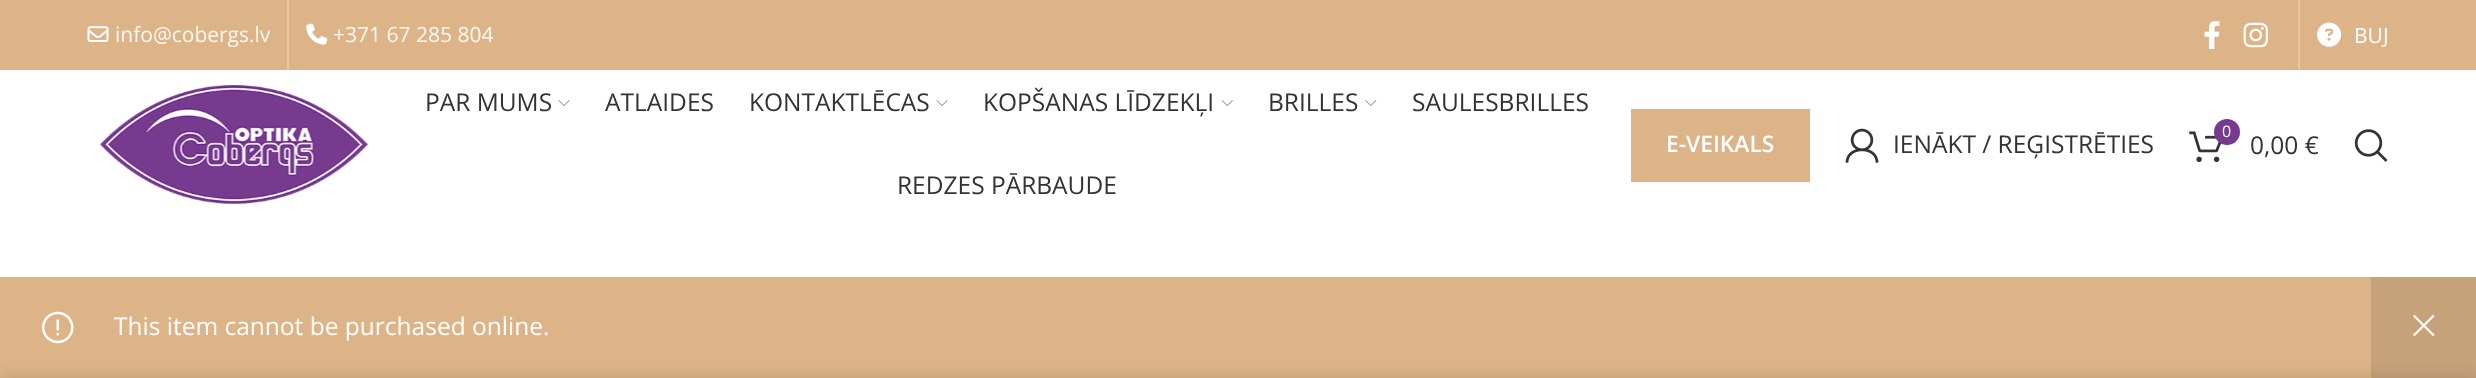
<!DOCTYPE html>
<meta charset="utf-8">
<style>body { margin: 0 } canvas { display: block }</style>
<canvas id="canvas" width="2476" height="378"></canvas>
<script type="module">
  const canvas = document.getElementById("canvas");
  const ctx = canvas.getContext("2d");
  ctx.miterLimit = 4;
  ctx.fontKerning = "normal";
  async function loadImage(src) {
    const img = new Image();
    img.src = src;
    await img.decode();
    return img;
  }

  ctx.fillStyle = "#ffffff";
  ctx.fillRect(0, 0, 2476, 378);
  ctx.fillStyle = "#dcb487";
  ctx.fillRect(0, 0, 2476, 70);
  ctx.drawImage(await loadImage("img1.png"), 87, 26, 22, 16);
  ctx.font = "21px Open Sans";
  ctx.fillStyle = "#fcf8f3";
  ctx.fillText("info@cobergs.lv", 115, 42);
  ctx.fillStyle = "#e5c7a5";
  ctx.fillRect(287, 0, 2, 70);
  ctx.drawImage(await loadImage("img2.png"), 306, 23, 22, 22);
  ctx.fillStyle = "#fcf8f3";
  ctx.fillText("+371 67 285 804", 333, 42);
  ctx.drawImage(await loadImage("img3.png"), 2204, 21, 16, 28);
  ctx.drawImage(await loadImage("img4.png"), 2243, 22, 25, 26);
  ctx.fillStyle = "#e5c7a5";
  ctx.fillRect(2298, 0, 2, 70);
  ctx.drawImage(await loadImage("img5.png"), 2317, 22, 25, 25);
  ctx.fillStyle = "#ffffff";
  ctx.fillText("BUJ", 2354, 43);
  ctx.drawImage(await loadImage("img6.png"), 99, 85, 270, 119);
  ctx.font = "24.5px Open Sans";
  ctx.fillStyle = "#333333";
  ctx.fillText("PAR MUMS", 425, 111);
  ctx.drawImage(await loadImage("img7.png"), 558, 100, 12, 7);
  ctx.fillText("ATLAIDES", 605, 111);
  ctx.fillText("KONTAKTLĒCAS", 749, 111);
  ctx.drawImage(await loadImage("img7.png"), 936, 100, 12, 7);
  ctx.fillText("KOPŠANAS LĪDZEKĻI", 983, 111);
  ctx.drawImage(await loadImage("img8.png"), 1221, 100, 12, 7);
  ctx.fillText("BRILLES", 1268, 111);
  ctx.drawImage(await loadImage("img9.png"), 1365, 100, 12, 7);
  ctx.fillText("SAULESBRILLES", 1412, 111);
  ctx.fillText("REDZES PĀRBAUDE", 897, 194);
  ctx.fillStyle = "#dcb487";
  ctx.fillRect(1631, 109, 179, 73);
  ctx.font = "600 22.75px Open Sans";
  ctx.fillStyle = "#ffffff";
  ctx.fillText("E-VEIKALS", 1666, 152);
  ctx.drawImage(await loadImage("img10.png"), 1845, 128, 34, 35);
  ctx.font = "24.5px Open Sans";
  ctx.fillStyle = "#333333";
  ctx.fillText("IENĀKT / REĢISTRĒTIES", 1893, 153);
  ctx.drawImage(await loadImage("img11.png"), 2189, 131, 33, 32);
  ctx.fillStyle = "#763a8f";
  ctx.beginPath();
  ctx.arc(2227, 132, 13, 0, Math.PI * 2);
  ctx.fill();
  ctx.font = "16px Open Sans";
  ctx.fillStyle = "#ffffff";
  ctx.fillText("0", 2222, 137);
  ctx.font = "24.5px Open Sans";
  ctx.fillStyle = "#333333";
  ctx.fillText("0,00 €", 2250, 154);
  ctx.drawImage(await loadImage("img12.png"), 2354, 129, 34, 33);
  ctx.fillStyle = "#dcb487";
  ctx.fillRect(0, 277, 2371, 101);
  ctx.drawImage(await loadImage("img13.png"), 42, 311, 32, 33);
  ctx.fillStyle = "#ffffff";
  ctx.fillText("This item cannot be purchased online.", 114, 335);
  ctx.fillStyle = "#c6a27a";
  ctx.fillRect(2371, 277, 105, 101);
  ctx.drawImage(await loadImage("img14.png"), 2413, 314, 22, 23);
  ctx.fillStyle = "rgba(0, 0, 0, 0.14)";
  ctx.filter = "blur(8px)";
  ctx.beginPath();
  ctx.rect(0, 378, 2476, 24);
  ctx.fill();
  ctx.filter = "none";
</script>
